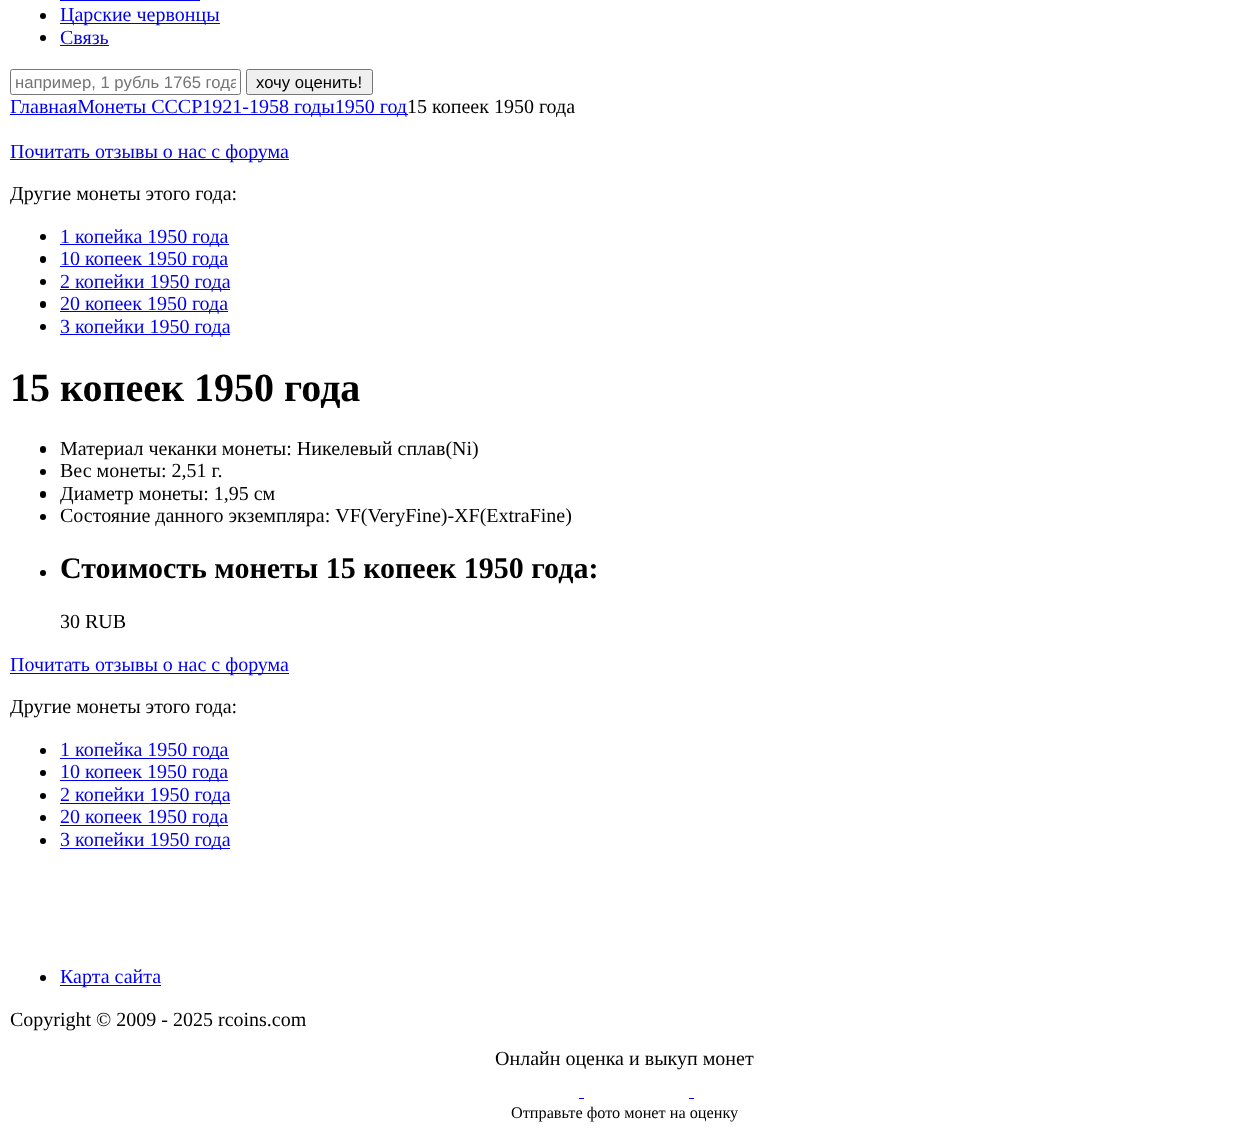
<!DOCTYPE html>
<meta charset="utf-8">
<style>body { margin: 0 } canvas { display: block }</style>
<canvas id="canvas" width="1248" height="1136"></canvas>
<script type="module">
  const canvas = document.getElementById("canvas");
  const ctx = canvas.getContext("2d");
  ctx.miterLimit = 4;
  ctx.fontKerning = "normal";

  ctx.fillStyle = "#ffffff";
  ctx.fillRect(0, 0, 1248, 1136);
  ctx.fillStyle = "#0000ee";
  ctx.fillRect(60, 0, 140, 1);
  ctx.fillStyle = "#000000";
  ctx.beginPath();
  ctx.arc(43, 16, 3, 0, Math.PI * 2);
  ctx.fill();
  ctx.fillStyle = "#0000ee";
  ctx.fillRect(60, 23, 160, 1);
  ctx.font = "20px Liberation Serif";
  ctx.fillText("Царские червонцы", 60, 21);
  ctx.fillStyle = "#000000";
  ctx.beginPath();
  ctx.arc(43, 38, 3, 0, Math.PI * 2);
  ctx.fill();
  ctx.fillStyle = "#0000ee";
  ctx.fillText("Связь", 60, 44);
  ctx.fillRect(60, 45, 49, 1);
  ctx.beginPath();
  ctx.roundRect(10.5, 69.5, 230, 25, 2);
  ctx.strokeStyle = "#767676";
  ctx.stroke();
  ctx.save();
  ctx.beginPath();
  ctx.rect(15, 73, 221, 18);
  ctx.clip();
  ctx.font = "16.7px Liberation Sans";
  ctx.fillStyle = "#757575";
  ctx.fillText("например, 1 рубль 1765 года", 15, 88);
  ctx.restore();
  ctx.fillStyle = "#efefef";
  ctx.beginPath();
  ctx.roundRect(246.5, 69.5, 126, 25, 2);
  ctx.fill();
  ctx.stroke();
  ctx.font = "16.7px Liberation Sans";
  ctx.fillStyle = "#000000";
  ctx.fillText("хочу оценить!", 256, 88);
  ctx.fillStyle = "#0000ee";
  ctx.fillRect(10, 114, 398, 1);
  ctx.font = "20px Liberation Serif";
  ctx.fillText("ГлавнаяМонеты СССР1921-1958 годы1950 год", 10, 113);
  ctx.fillStyle = "#000000";
  ctx.fillText("15 копеек 1950 года", 407, 113);
  ctx.fillStyle = "#0000ee";
  ctx.fillRect(10, 159, 279, 1);
  ctx.fillText("Почитать отзывы о нас с форума", 10, 158);
  ctx.fillStyle = "#000000";
  ctx.fillText("Другие монеты этого года:", 10, 200);
  ctx.beginPath();
  ctx.arc(43, 237, 3, 0, Math.PI * 2);
  ctx.fill();
  ctx.fillStyle = "#0000ee";
  ctx.fillRect(60, 244, 169, 1);
  ctx.fillText("1 копейка 1950 года", 60, 243);
  ctx.fillStyle = "#000000";
  ctx.beginPath();
  ctx.roundRect(40, 256, 6, 7, 3);
  ctx.fill();
  ctx.fillStyle = "#0000ee";
  ctx.fillRect(60, 266, 168, 1);
  ctx.fillText("10 копеек 1950 года", 60, 265);
  ctx.fillStyle = "#000000";
  ctx.beginPath();
  ctx.arc(43, 282, 3, 0, Math.PI * 2);
  ctx.fill();
  ctx.fillStyle = "#0000ee";
  ctx.fillRect(60, 289, 170, 1);
  ctx.fillText("2 копейки 1950 года", 60, 288);
  ctx.fillStyle = "#000000";
  ctx.beginPath();
  ctx.roundRect(40, 301, 6, 7, 3);
  ctx.fill();
  ctx.fillStyle = "#0000ee";
  ctx.fillRect(60, 311, 168, 1);
  ctx.fillText("20 копеек 1950 года", 60, 310);
  ctx.fillStyle = "#000000";
  ctx.beginPath();
  ctx.arc(43, 327, 3, 0, Math.PI * 2);
  ctx.fill();
  ctx.fillStyle = "#0000ee";
  ctx.fillRect(60, 334, 170, 1);
  ctx.fillText("3 копейки 1950 года", 60, 333);
  ctx.font = "bold 40px Liberation Serif";
  ctx.fillStyle = "#000000";
  ctx.fillText("15 копеек 1950 года", 10, 401);
  ctx.beginPath();
  ctx.roundRect(40, 446, 6, 7, 3);
  ctx.fill();
  ctx.font = "20px Liberation Serif";
  ctx.fillText("Материал чеканки монеты: Никелевый сплав(Ni)", 60, 455);
  ctx.beginPath();
  ctx.arc(43, 472, 3, 0, Math.PI * 2);
  ctx.fill();
  ctx.fillText("Вес монеты: 2,51 г.", 60, 477);
  ctx.beginPath();
  ctx.roundRect(40, 491, 6, 7, 3);
  ctx.fill();
  ctx.fillText("Диаметр монеты: 1,95 см", 60, 500);
  ctx.beginPath();
  ctx.arc(43, 517, 3, 0, Math.PI * 2);
  ctx.fill();
  ctx.fillText("Состояние данного экземпляра: VF(VeryFine)-XF(ExtraFine)", 60, 522);
  ctx.beginPath();
  ctx.arc(43, 573, 3, 0, Math.PI * 2);
  ctx.fill();
  ctx.font = "bold 30px Liberation Serif";
  ctx.fillText("Стоимость монеты 15 копеек 1950 года:", 60, 578);
  ctx.font = "20px Liberation Serif";
  ctx.fillText("30 RUB", 60, 628);
  ctx.fillStyle = "#0000ee";
  ctx.fillRect(10, 673, 279, 1);
  ctx.fillText("Почитать отзывы о нас с форума", 10, 671);
  ctx.fillStyle = "#000000";
  ctx.fillText("Другие монеты этого года:", 10, 713);
  ctx.beginPath();
  ctx.arc(43, 751, 3, 0, Math.PI * 2);
  ctx.fill();
  ctx.fillStyle = "#0000ee";
  ctx.fillRect(60, 758, 169, 1);
  ctx.fillText("1 копейка 1950 года", 60, 756);
  ctx.fillStyle = "#000000";
  ctx.beginPath();
  ctx.arc(43, 773, 3, 0, Math.PI * 2);
  ctx.fill();
  ctx.fillStyle = "#0000ee";
  ctx.fillRect(60, 780, 168, 1);
  ctx.fillText("10 копеек 1950 года", 60, 778);
  ctx.fillStyle = "#000000";
  ctx.beginPath();
  ctx.arc(43, 796, 3, 0, Math.PI * 2);
  ctx.fill();
  ctx.fillStyle = "#0000ee";
  ctx.fillRect(60, 803, 170, 1);
  ctx.fillText("2 копейки 1950 года", 60, 801);
  ctx.fillStyle = "#000000";
  ctx.beginPath();
  ctx.arc(43, 818, 3, 0, Math.PI * 2);
  ctx.fill();
  ctx.fillStyle = "#0000ee";
  ctx.fillRect(60, 825, 168, 1);
  ctx.fillText("20 копеек 1950 года", 60, 823);
  ctx.fillStyle = "#000000";
  ctx.beginPath();
  ctx.arc(43, 841, 3, 0, Math.PI * 2);
  ctx.fill();
  ctx.fillStyle = "#0000ee";
  ctx.fillRect(60, 848, 170, 1);
  ctx.fillText("3 копейки 1950 года", 60, 846);
  ctx.fillStyle = "#000000";
  ctx.beginPath();
  ctx.arc(43, 978, 3, 0, Math.PI * 2);
  ctx.fill();
  ctx.fillStyle = "#0000ee";
  ctx.fillRect(60, 985, 101, 1);
  ctx.fillText("Карта сайта", 60, 983);
  ctx.fillStyle = "#000000";
  ctx.fillText("Copyright © 2009 - 2025 rcoins.com", 10, 1026);
  ctx.fillText("Онлайн оценка и выкуп монет", 495, 1065);
  ctx.fillStyle = "#0000ee";
  ctx.fillRect(579, 1098, 5, 1);
  ctx.fillRect(689, 1098, 5, 1);
  ctx.font = "16.25px Liberation Serif";
  ctx.fillStyle = "#000000";
  ctx.fillText("Отправьте фото монет на оценку", 511, 1118);
</script>
